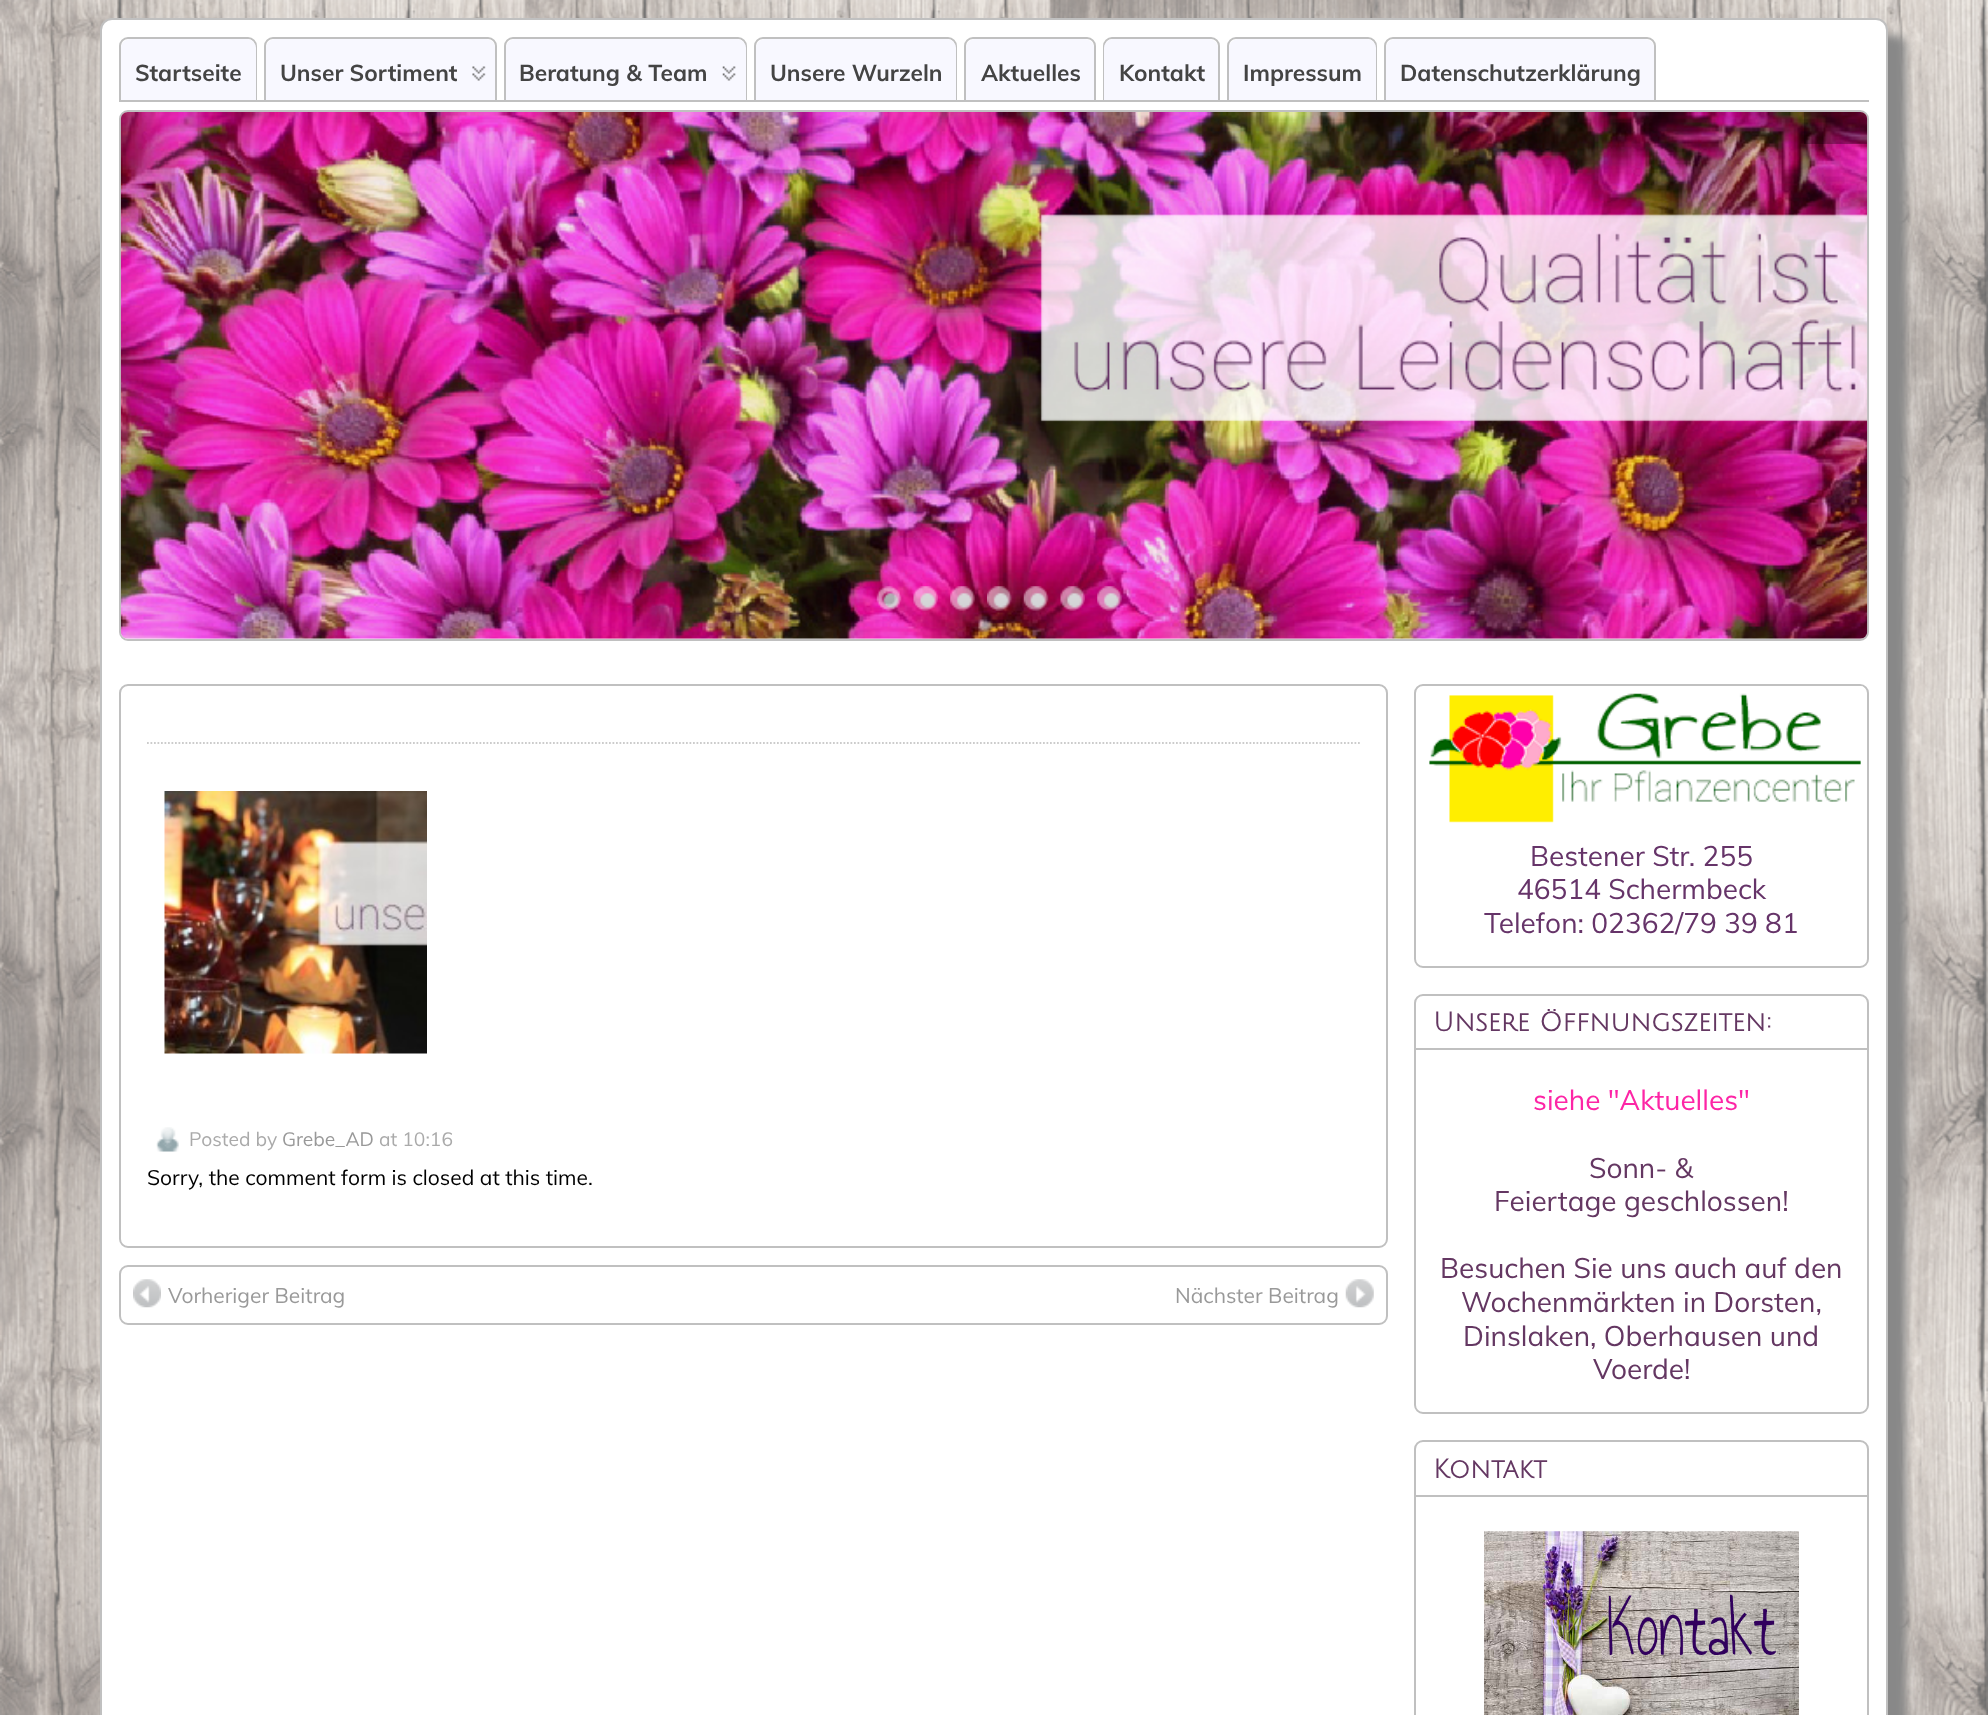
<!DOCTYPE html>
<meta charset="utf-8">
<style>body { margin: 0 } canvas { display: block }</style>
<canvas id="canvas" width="1988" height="1715"></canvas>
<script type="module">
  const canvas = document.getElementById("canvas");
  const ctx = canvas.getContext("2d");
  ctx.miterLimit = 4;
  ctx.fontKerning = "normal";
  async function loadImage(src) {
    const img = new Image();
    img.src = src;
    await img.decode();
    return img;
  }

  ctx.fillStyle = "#ffffff";
  ctx.fillRect(0, 0, 1988, 1715);
  ctx.drawImage(await loadImage("img1.png"), 0, 0, 1988, 1715);
  ctx.fillStyle = "#888888";
  ctx.filter = "blur(4.5px)";
  ctx.beginPath();
  ctx.roundRect(117, 35, 1789, 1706, 12);
  ctx.fill();
  ctx.filter = "none";
  ctx.fillStyle = "#ffffff";
  ctx.beginPath();
  ctx.roundRect(101, 19, 1786, 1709, 11);
  ctx.fill();
  ctx.strokeStyle = "#c0c0c0";
  ctx.lineWidth = 2;
  ctx.stroke();
  ctx.fillStyle = "#c0c0c0";
  ctx.fillRect(257, 100, 1612, 2);
  ctx.beginPath();
  ctx.roundRect(120, 38, 136, 63, [8, 8, 0, 0]);
  ctx.stroke();
  ctx.fillStyle = "#f8f8ff";
  ctx.beginPath();
  ctx.roundRect(121, 39, 135, 61, [9, 9, 0, 0]);
  ctx.fill();
  ctx.font = "bold 22.75px Muli";
  ctx.fillStyle = "#444444";
  ctx.fillText("Startseite", 135, 81);
  ctx.beginPath();
  ctx.roundRect(265, 38, 231, 63, [8, 8, 0, 0]);
  ctx.stroke();
  ctx.fillStyle = "#f8f8ff";
  ctx.beginPath();
  ctx.roundRect(266, 39, 229, 61, [9, 9, 0, 0]);
  ctx.fill();
  ctx.fillStyle = "#444444";
  ctx.fillText("Unser Sortiment", 280, 81);
  ctx.drawImage(await loadImage("img2.png"), 472, 66, 14, 15);
  ctx.beginPath();
  ctx.roundRect(505, 38, 241, 63, [8, 8, 0, 0]);
  ctx.stroke();
  ctx.fillStyle = "#f8f8ff";
  ctx.beginPath();
  ctx.roundRect(506, 39, 240, 61, [9, 9, 0, 0]);
  ctx.fill();
  ctx.fillStyle = "#444444";
  ctx.fillText("Beratung & Team", 519, 81);
  ctx.drawImage(await loadImage("img3.png"), 722, 66, 14, 15);
  ctx.beginPath();
  ctx.roundRect(755, 38, 201, 63, [8, 8, 0, 0]);
  ctx.stroke();
  ctx.fillStyle = "#f8f8ff";
  ctx.beginPath();
  ctx.roundRect(756, 39, 200, 61, [9, 9, 0, 0]);
  ctx.fill();
  ctx.fillStyle = "#444444";
  ctx.fillText("Unsere Wurzeln", 770, 81);
  ctx.beginPath();
  ctx.roundRect(965, 38, 130, 63, [8, 8, 0, 0]);
  ctx.stroke();
  ctx.fillStyle = "#f8f8ff";
  ctx.beginPath();
  ctx.roundRect(966, 39, 128, 61, [9, 9, 0, 0]);
  ctx.fill();
  ctx.fillStyle = "#444444";
  ctx.fillText("Aktuelles", 981, 81);
  ctx.beginPath();
  ctx.roundRect(1104, 38, 115, 63, [8, 8, 0, 0]);
  ctx.stroke();
  ctx.fillStyle = "#f8f8ff";
  ctx.beginPath();
  ctx.roundRect(1104, 39, 114, 61, [9, 9, 0, 0]);
  ctx.fill();
  ctx.fillStyle = "#444444";
  ctx.fillText("Kontakt", 1119, 81);
  ctx.beginPath();
  ctx.roundRect(1228, 38, 148, 63, [8, 8, 0, 0]);
  ctx.stroke();
  ctx.fillStyle = "#f8f8ff";
  ctx.beginPath();
  ctx.roundRect(1229, 39, 147, 61, [9, 9, 0, 0]);
  ctx.fill();
  ctx.fillStyle = "#444444";
  ctx.fillText("Impressum", 1243, 81);
  ctx.beginPath();
  ctx.roundRect(1385, 38, 270, 63, [8, 8, 0, 0]);
  ctx.stroke();
  ctx.fillStyle = "#f8f8ff";
  ctx.beginPath();
  ctx.roundRect(1386, 39, 268, 61, [9, 9, 0, 0]);
  ctx.fill();
  ctx.fillStyle = "#444444";
  ctx.fillText("Datenschutzerklärung", 1400, 81);
  ctx.beginPath();
  ctx.roundRect(120, 111, 1748, 529, 8);
  ctx.stroke();
  ctx.drawImage(await loadImage("img4.png"), 120, 112, 1748, 527);
  ctx.fillStyle = "rgba(0, 0, 0, 0.3)";
  ctx.beginPath();
  ctx.roundRect(1804, 112, 63, 32, [0, 7, 0, 0]);
  ctx.fill();
  ctx.drawImage(await loadImage("img5.png"), 883, 592, 16, 16);
  ctx.drawImage(await loadImage("img6.png"), 876, 586, 26, 25);
  ctx.drawImage(await loadImage("img7.png"), 920, 592, 15, 16);
  ctx.drawImage(await loadImage("img8.png"), 913, 586, 25, 25);
  ctx.drawImage(await loadImage("img9.png"), 956, 592, 16, 16);
  ctx.drawImage(await loadImage("img10.png"), 950, 586, 25, 25);
  ctx.drawImage(await loadImage("img11.png"), 993, 592, 16, 16);
  ctx.drawImage(await loadImage("img12.png"), 987, 586, 25, 25);
  ctx.drawImage(await loadImage("img13.png"), 1030, 592, 16, 16);
  ctx.drawImage(await loadImage("img14.png"), 1023, 586, 26, 25);
  ctx.drawImage(await loadImage("img15.png"), 1067, 592, 15, 16);
  ctx.drawImage(await loadImage("img16.png"), 1060, 586, 25, 25);
  ctx.drawImage(await loadImage("img17.png"), 1103, 592, 16, 16);
  ctx.drawImage(await loadImage("img18.png"), 1097, 586, 25, 25);
  ctx.beginPath();
  ctx.roundRect(120, 685, 1267, 562, 8);
  ctx.stroke();
  ctx.beginPath();
  ctx.moveTo(147, 743);
  ctx.lineTo(1360, 743);
  ctx.strokeStyle = "#cccccc";
  ctx.lineWidth = 1.8;
  ctx.setLineDash([1.75, 1.75]);
  ctx.stroke();
  ctx.drawImage(await loadImage("img19.png"), 164, 791, 263, 263);
  ctx.drawImage(await loadImage("img20.png"), 156, 1127, 23, 25);
  ctx.font = "19.25px Muli";
  ctx.fillStyle = "#aaaaaa";
  ctx.fillText("Posted by", 189, 1146);
  ctx.fillStyle = "#999999";
  ctx.fillText("Grebe_AD", 282, 1146);
  ctx.fillStyle = "#aaaaaa";
  ctx.fillText("at 10:16", 379, 1146);
  ctx.font = "21px Muli";
  ctx.fillStyle = "#000000";
  ctx.fillText("Sorry, the comment form is closed at this time.", 147, 1185);
  ctx.beginPath();
  ctx.roundRect(120, 1266, 1267, 58, 8);
  ctx.strokeStyle = "#c0c0c0";
  ctx.lineWidth = 2;
  ctx.setLineDash([]);
  ctx.stroke();
  ctx.drawImage(await loadImage("img21.png"), 133, 1279, 28, 29);
  ctx.fillStyle = "#999999";
  ctx.fillText("Vorheriger Beitrag", 168, 1303);
  ctx.fillText("Nächster Beitrag", 1175, 1303);
  ctx.drawImage(await loadImage("img22.png"), 1345, 1279, 29, 29);
  ctx.beginPath();
  ctx.roundRect(1415, 685, 453, 282, 8);
  ctx.stroke();
  ctx.drawImage(await loadImage("img23.png"), 1429, 686, 435, 137);
  ctx.font = "28px Muli";
  ctx.fillStyle = "#663469";
  ctx.fillText("Bestener Str. 255", 1530, 866);
  ctx.fillText("46514 Schermbeck", 1517, 899);
  ctx.fillText("Telefon: 02362/79 39 81", 1484, 933);
  ctx.beginPath();
  ctx.roundRect(1415, 995, 453, 418, 8);
  ctx.stroke();
  ctx.fillStyle = "#c0c0c0";
  ctx.fillRect(1416, 1048, 451, 2);
  ctx.font = "bold 26.25px Julius Sans One";
  ctx.fillStyle = "#643762";
  ctx.fillText("Unsere Öffnungszeiten:", 1433, 1031);
  ctx.font = "28px Muli";
  ctx.fillStyle = "#fd25a6";
  ctx.fillText("siehe \"Aktuelles\"", 1533, 1110);
  ctx.fillStyle = "#643762";
  ctx.fillText("Sonn- &", 1589, 1178);
  ctx.fillText("Feiertage geschlossen!", 1494, 1211);
  ctx.fillText("Besuchen Sie uns auch auf den", 1440, 1278);
  ctx.fillText("Wochenmärkten in Dorsten,", 1461, 1312);
  ctx.fillText("Dinslaken, Oberhausen und", 1463, 1346);
  ctx.fillText("Voerde!", 1593, 1379);
  ctx.beginPath();
  ctx.roundRect(1415, 1441, 453, 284, 8);
  ctx.stroke();
  ctx.fillStyle = "#c0c0c0";
  ctx.fillRect(1416, 1495, 451, 2);
  ctx.font = "bold 26.25px Julius Sans One";
  ctx.fillStyle = "#643762";
  ctx.fillText("Kontakt", 1433, 1478);
  ctx.drawImage(await loadImage("img24.png"), 1484, 1531, 315, 184);
</script>
